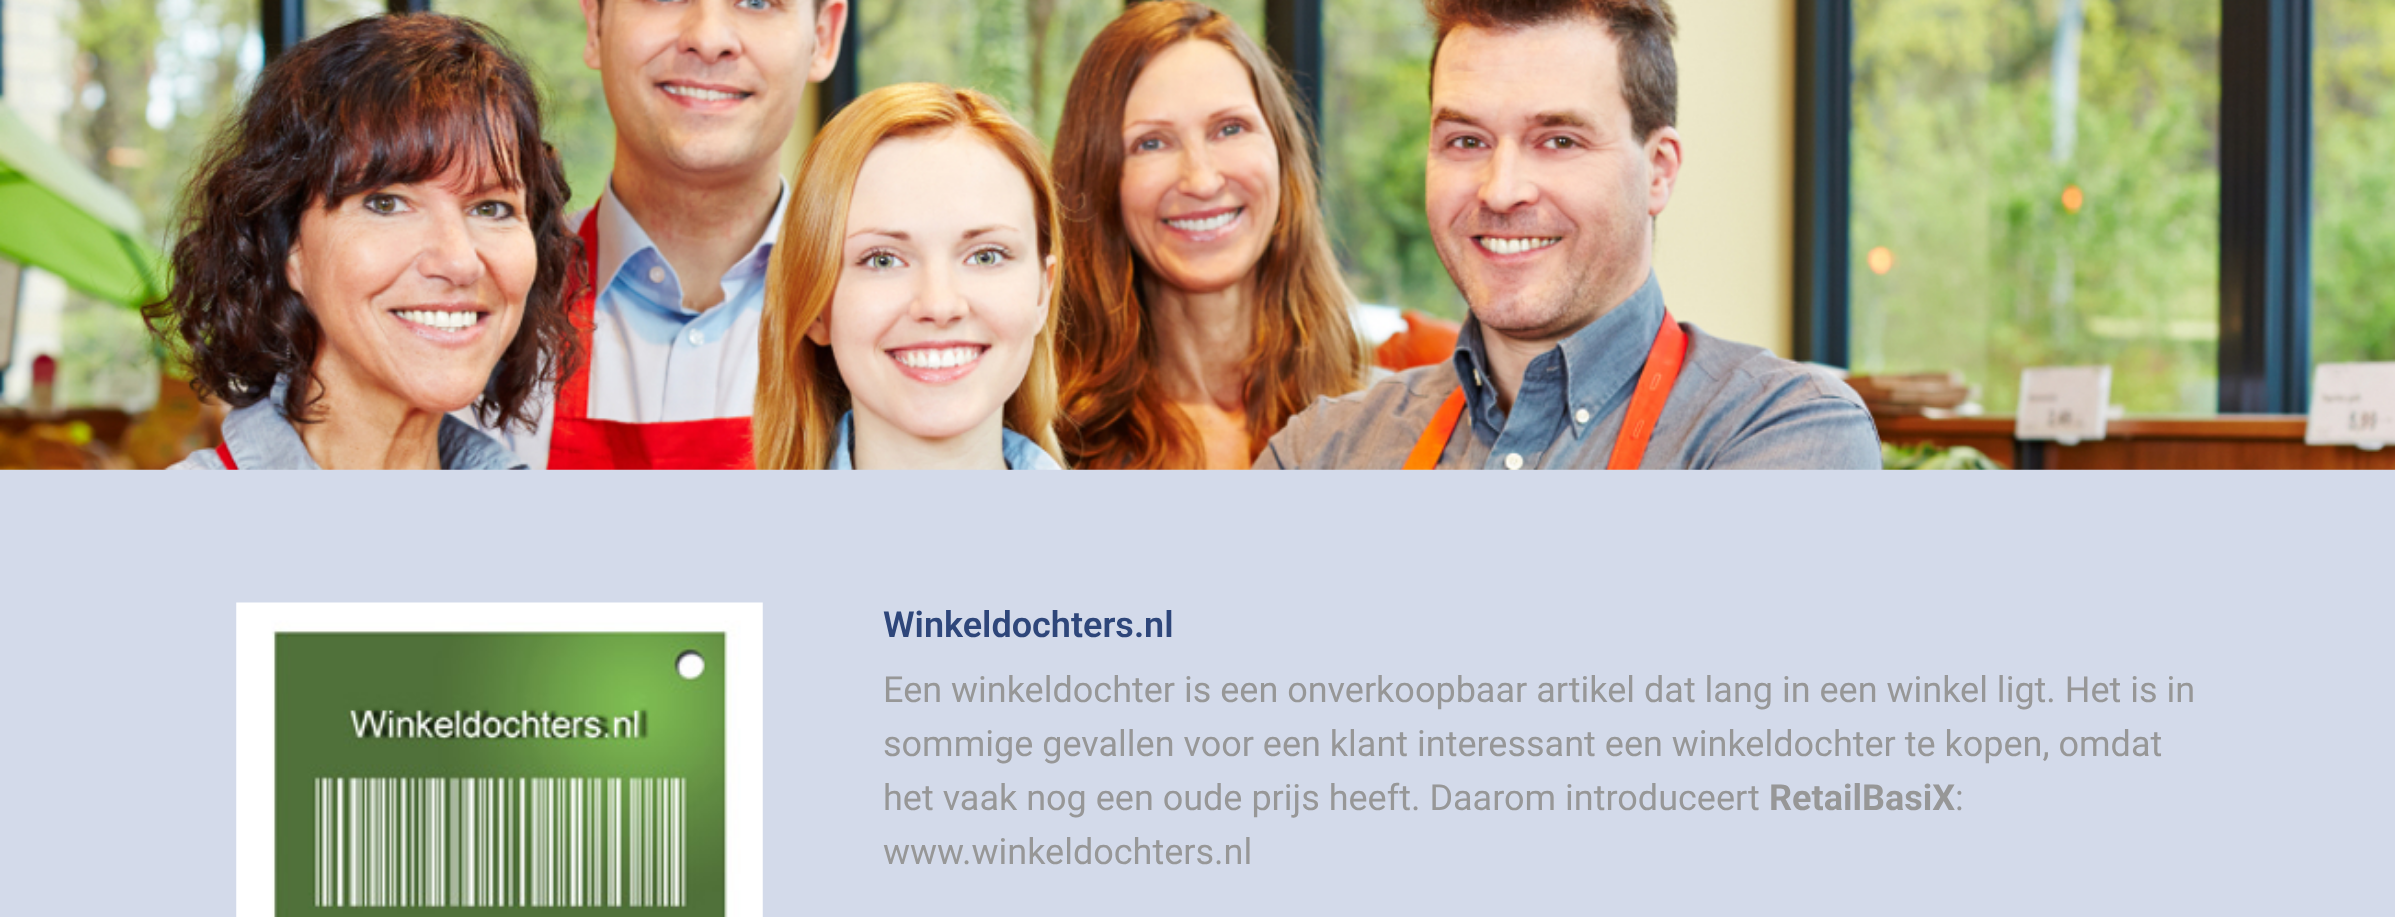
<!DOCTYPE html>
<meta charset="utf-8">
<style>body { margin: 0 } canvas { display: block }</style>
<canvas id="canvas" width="2395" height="917"></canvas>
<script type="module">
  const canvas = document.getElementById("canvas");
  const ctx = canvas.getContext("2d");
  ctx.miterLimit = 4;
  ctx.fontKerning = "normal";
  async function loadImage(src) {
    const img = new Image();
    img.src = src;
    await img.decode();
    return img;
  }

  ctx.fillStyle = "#d3daea";
  ctx.fillRect(0, 0, 2395, 917);
  ctx.drawImage(await loadImage("img1.png"), 0, 0, 2395, 470);
  ctx.drawImage(await loadImage("img2.png"), 236, 602, 527, 315);
  ctx.font = "600 36px Roboto";
  ctx.fillStyle = "#2e467a";
  ctx.fillText("Winkeldochters.nl", 883, 637);
  ctx.font = "36px Roboto";
  ctx.fillStyle = "#979797";
  ctx.fillText("Een winkeldochter is een onverkoopbaar artikel dat lang in een winkel ligt. Het is in", 883, 702);
  ctx.fillText("sommige gevallen voor een klant interessant een winkeldochter te kopen, omdat", 883, 756);
  ctx.fillText("het vaak nog een oude prijs heeft. Daarom introduceert", 883, 810);
  ctx.font = "bold 36px Roboto";
  ctx.fillText("RetailBasiX", 1769, 810);
  ctx.font = "36px Roboto";
  ctx.fillText(":", 1955, 810);
  ctx.fillText("www.winkeldochters.nl", 883, 864);
</script>
